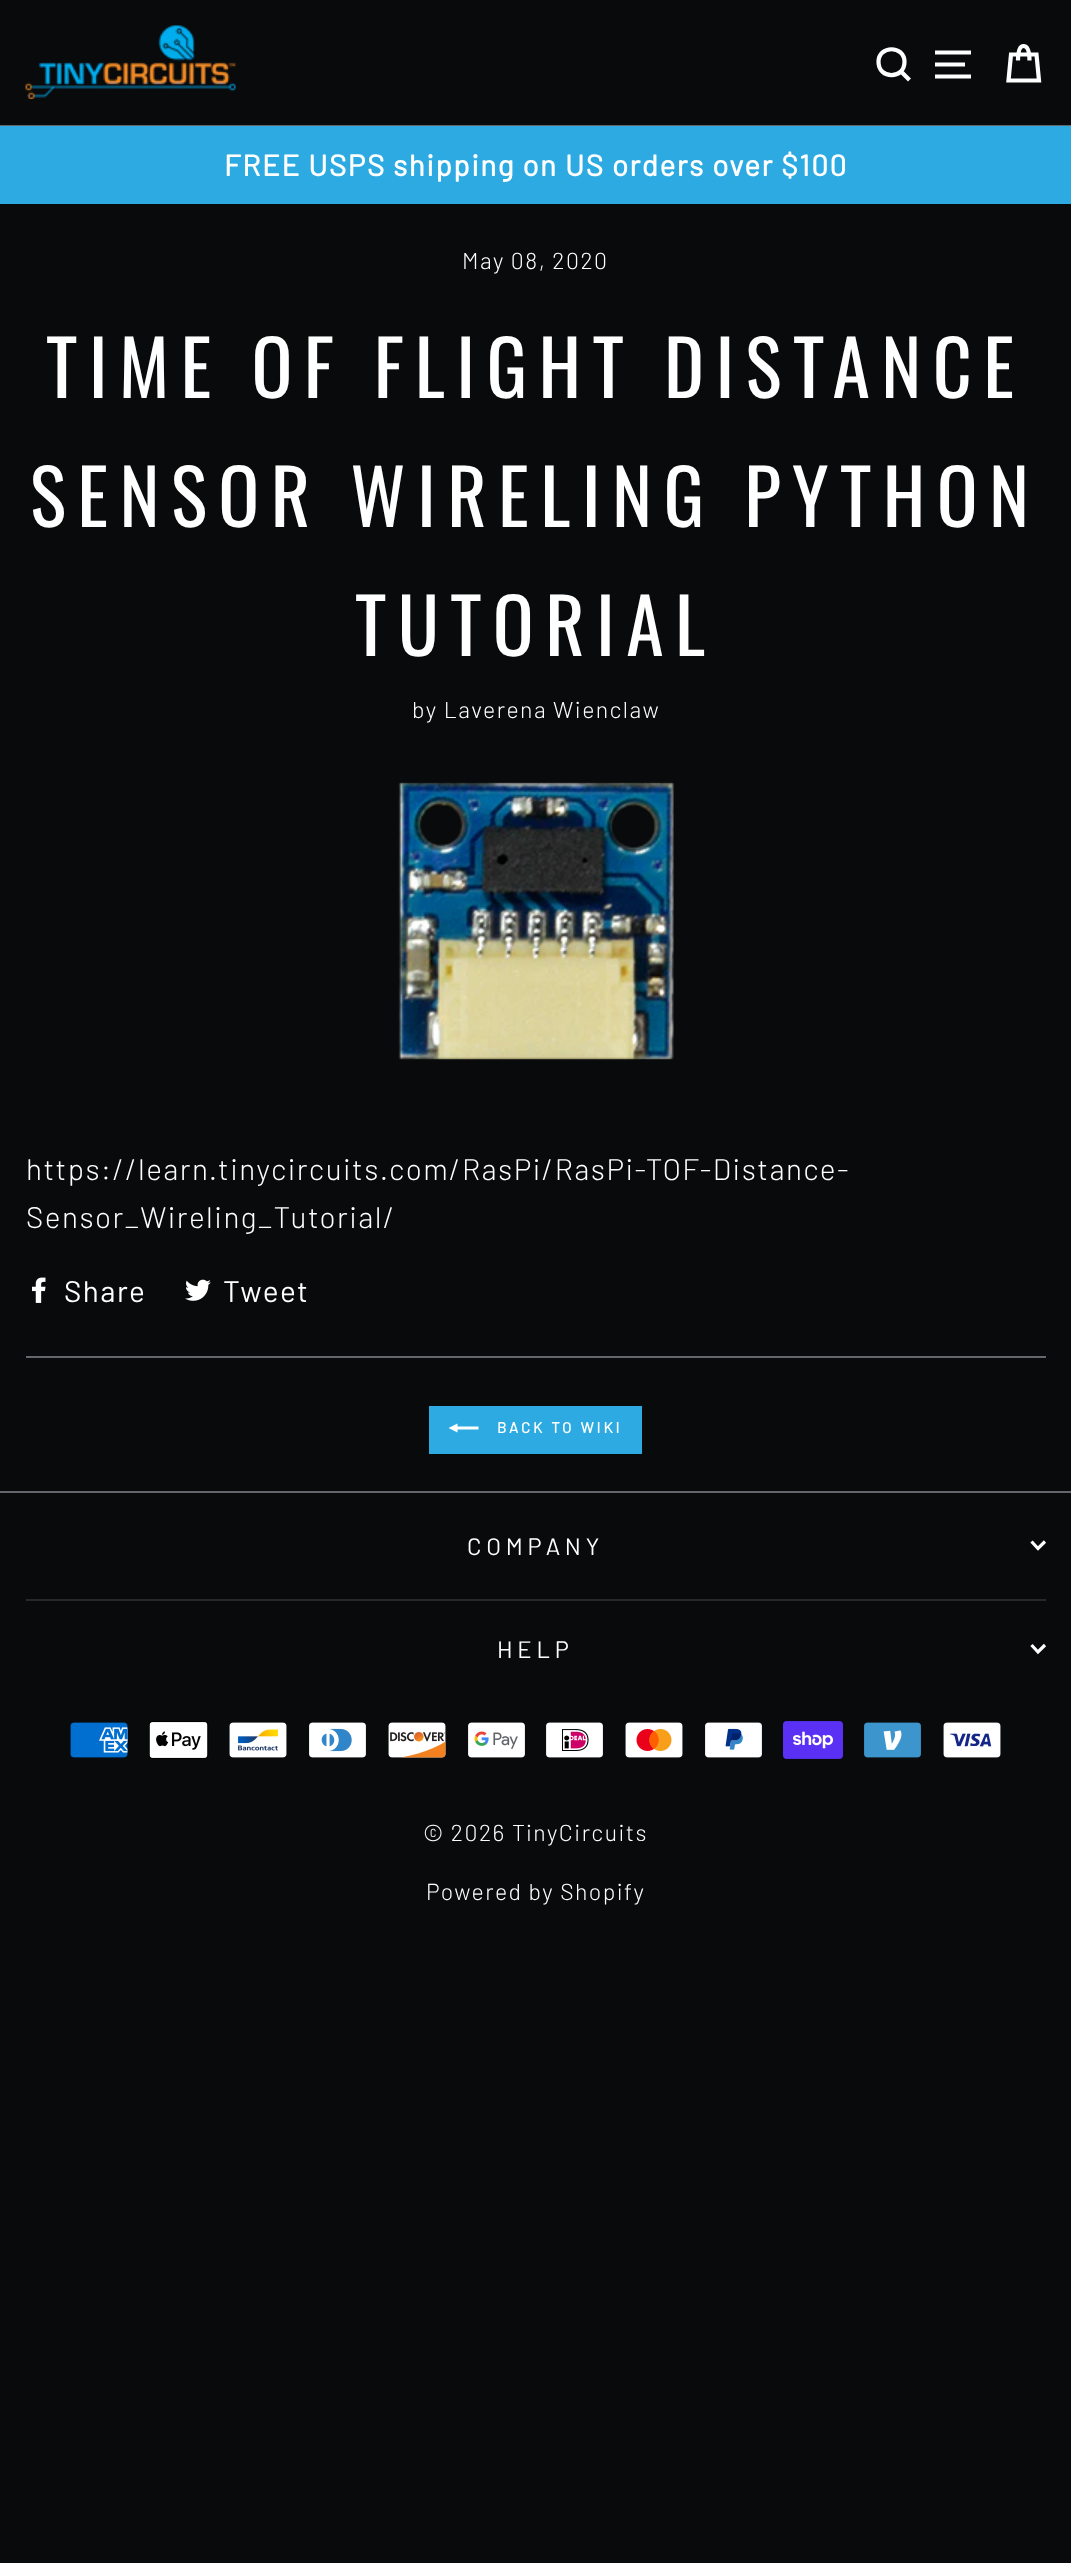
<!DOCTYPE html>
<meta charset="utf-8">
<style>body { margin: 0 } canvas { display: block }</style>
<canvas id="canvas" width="1071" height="2563"></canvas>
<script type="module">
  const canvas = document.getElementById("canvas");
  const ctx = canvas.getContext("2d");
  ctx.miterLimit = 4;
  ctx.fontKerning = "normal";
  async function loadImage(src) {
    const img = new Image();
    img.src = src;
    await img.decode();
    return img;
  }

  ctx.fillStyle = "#090a0c";
  ctx.fillRect(0, 0, 1071, 2563);
  ctx.fillStyle = "#63666a";
  ctx.fillRect(0, 125, 1071, 1);
  ctx.drawImage(await loadImage("img1.png"), 25, 25, 211, 74);
  ctx.beginPath();
  ctx.moveTo(904.5, 62);
  ctx.bezierCurveTo(904.5, 79.5, 878.5, 79.5, 878.5, 62);
  ctx.bezierCurveTo(878.5, 45, 904.5, 45, 904.5, 62);
  ctx.closePath();
  ctx.moveTo(909.5, 80);
  ctx.lineTo(901, 71.5);
  ctx.strokeStyle = "#fefffe";
  ctx.lineWidth = 4.2;
  ctx.stroke();
  ctx.beginPath();
  ctx.moveTo(935, 52.5);
  ctx.lineTo(971, 52.5);
  ctx.moveTo(935, 64.5);
  ctx.lineTo(965, 64.5);
  ctx.moveTo(935, 76.5);
  ctx.lineTo(971, 76.5);
  ctx.stroke();
  ctx.beginPath();
  ctx.moveTo(1018, 60.5);
  ctx.bezierCurveTo(1018, 49, 1020.5, 46, 1023.5, 46);
  ctx.bezierCurveTo(1027, 46, 1029.5, 49, 1029.5, 60.5);
  ctx.moveTo(1011, 54.5);
  ctx.lineTo(1036.5, 54.5);
  ctx.lineTo(1039, 80.5);
  ctx.lineTo(1008.5, 80.5);
  ctx.closePath();
  ctx.stroke();
  ctx.fillStyle = "#2daae1";
  ctx.fillRect(0, 126, 1071, 78);
  ctx.letterSpacing = "1.48px";
  ctx.font = "bold 29.7px Barlow";
  ctx.fillStyle = "#fefffe";
  ctx.fillText("FREE USPS shipping on US orders over $100", 224, 176);
  ctx.font = "300 23px Barlow";
  ctx.fillText("May 08, 2020", 462, 269);
  ctx.letterSpacing = "11.4px";
  ctx.font = "75.9px Oswald";
  ctx.fillText("TIME OF FLIGHT DISTANCE", 46, 398);
  ctx.fillText("SENSOR WIRELING PYTHON", 30, 527);
  ctx.fillText("TUTORIAL", 355, 656);
  ctx.letterSpacing = "1.48px";
  ctx.font = "300 23px Barlow";
  ctx.fillText("by Laverena Wienclaw", 412, 718);
  ctx.drawImage(await loadImage("img2.png"), 398, 782, 276, 278);
  ctx.font = "300 29.7px Barlow";
  ctx.fillText("https://learn.tinycircuits.com/RasPi/RasPi-TOF-Distance-", 26, 1180);
  ctx.fillText("Sensor_Wireling_Tutorial/", 26, 1228);
  ctx.drawImage(await loadImage("img3.png"), 32, 1277, 14, 26);
  ctx.font = "29.7px Barlow";
  ctx.fillText("Share", 64, 1302);
  ctx.drawImage(await loadImage("img4.png"), 185, 1279, 26, 22);
  ctx.fillText("Tweet", 223, 1302);
  ctx.fillStyle = "#63666a";
  ctx.fillRect(26, 1356, 1020, 2);
  ctx.fillStyle = "#2daae1";
  ctx.fillRect(429, 1406, 213, 48);
  ctx.fillStyle = "#fefffe";
  ctx.beginPath();
  ctx.moveTo(478.5, 1426.5);
  ctx.lineTo(478.5, 1429.5);
  ctx.lineTo(457.5, 1429.5);
  ctx.lineTo(457.5, 1432.5);
  ctx.lineTo(448.5, 1428);
  ctx.lineTo(457.5, 1423.5);
  ctx.lineTo(457.5, 1426.5);
  ctx.closePath();
  ctx.fill();
  ctx.letterSpacing = "3px";
  ctx.font = "bold 15px Barlow";
  ctx.fillText("BACK TO WIKI", 497, 1433);
  ctx.fillStyle = "#63666a";
  ctx.fillRect(0, 1491, 1071, 2);
  ctx.letterSpacing = "4.75px";
  ctx.font = "23.75px Barlow";
  ctx.fillStyle = "#fefffe";
  ctx.fillText("COMPANY", 467, 1555);
  ctx.beginPath();
  ctx.moveTo(1031.5, 1541.5);
  ctx.lineTo(1038, 1548.5);
  ctx.lineTo(1045, 1541.5);
  ctx.lineWidth = 3.2;
  ctx.stroke();
  ctx.fillStyle = "#262729";
  ctx.fillRect(26, 1599, 1020, 2);
  ctx.fillStyle = "#fefffe";
  ctx.fillText("HELP", 497, 1658);
  ctx.beginPath();
  ctx.moveTo(1031.5, 1645);
  ctx.lineTo(1038, 1652);
  ctx.lineTo(1045, 1645);
  ctx.stroke();
  ctx.drawImage(await loadImage("img5.png"), 70, 1722, 58, 36);
  ctx.drawImage(await loadImage("img6.png"), 149, 1721, 60, 38);
  ctx.drawImage(await loadImage("img7.png"), 229, 1722, 58, 36);
  ctx.drawImage(await loadImage("img8.png"), 309, 1722, 57, 36);
  ctx.drawImage(await loadImage("img9.png"), 388, 1722, 58, 36);
  ctx.drawImage(await loadImage("img10.png"), 468, 1722, 57, 36);
  ctx.drawImage(await loadImage("img11.png"), 546, 1722, 57, 36);
  ctx.drawImage(await loadImage("img12.png"), 625, 1722, 58, 36);
  ctx.drawImage(await loadImage("img13.png"), 705, 1722, 57, 36);
  ctx.drawImage(await loadImage("img14.png"), 783, 1721, 60, 38);
  ctx.drawImage(await loadImage("img15.png"), 864, 1722, 57, 36);
  ctx.drawImage(await loadImage("img16.png"), 943, 1722, 58, 36);
  ctx.letterSpacing = "1.48px";
  ctx.font = "300 23px Barlow";
  ctx.fillText("© 2026 TinyCircuits", 423, 1841);
  ctx.fillText("Powered by Shopify", 426, 1900);
</script>
